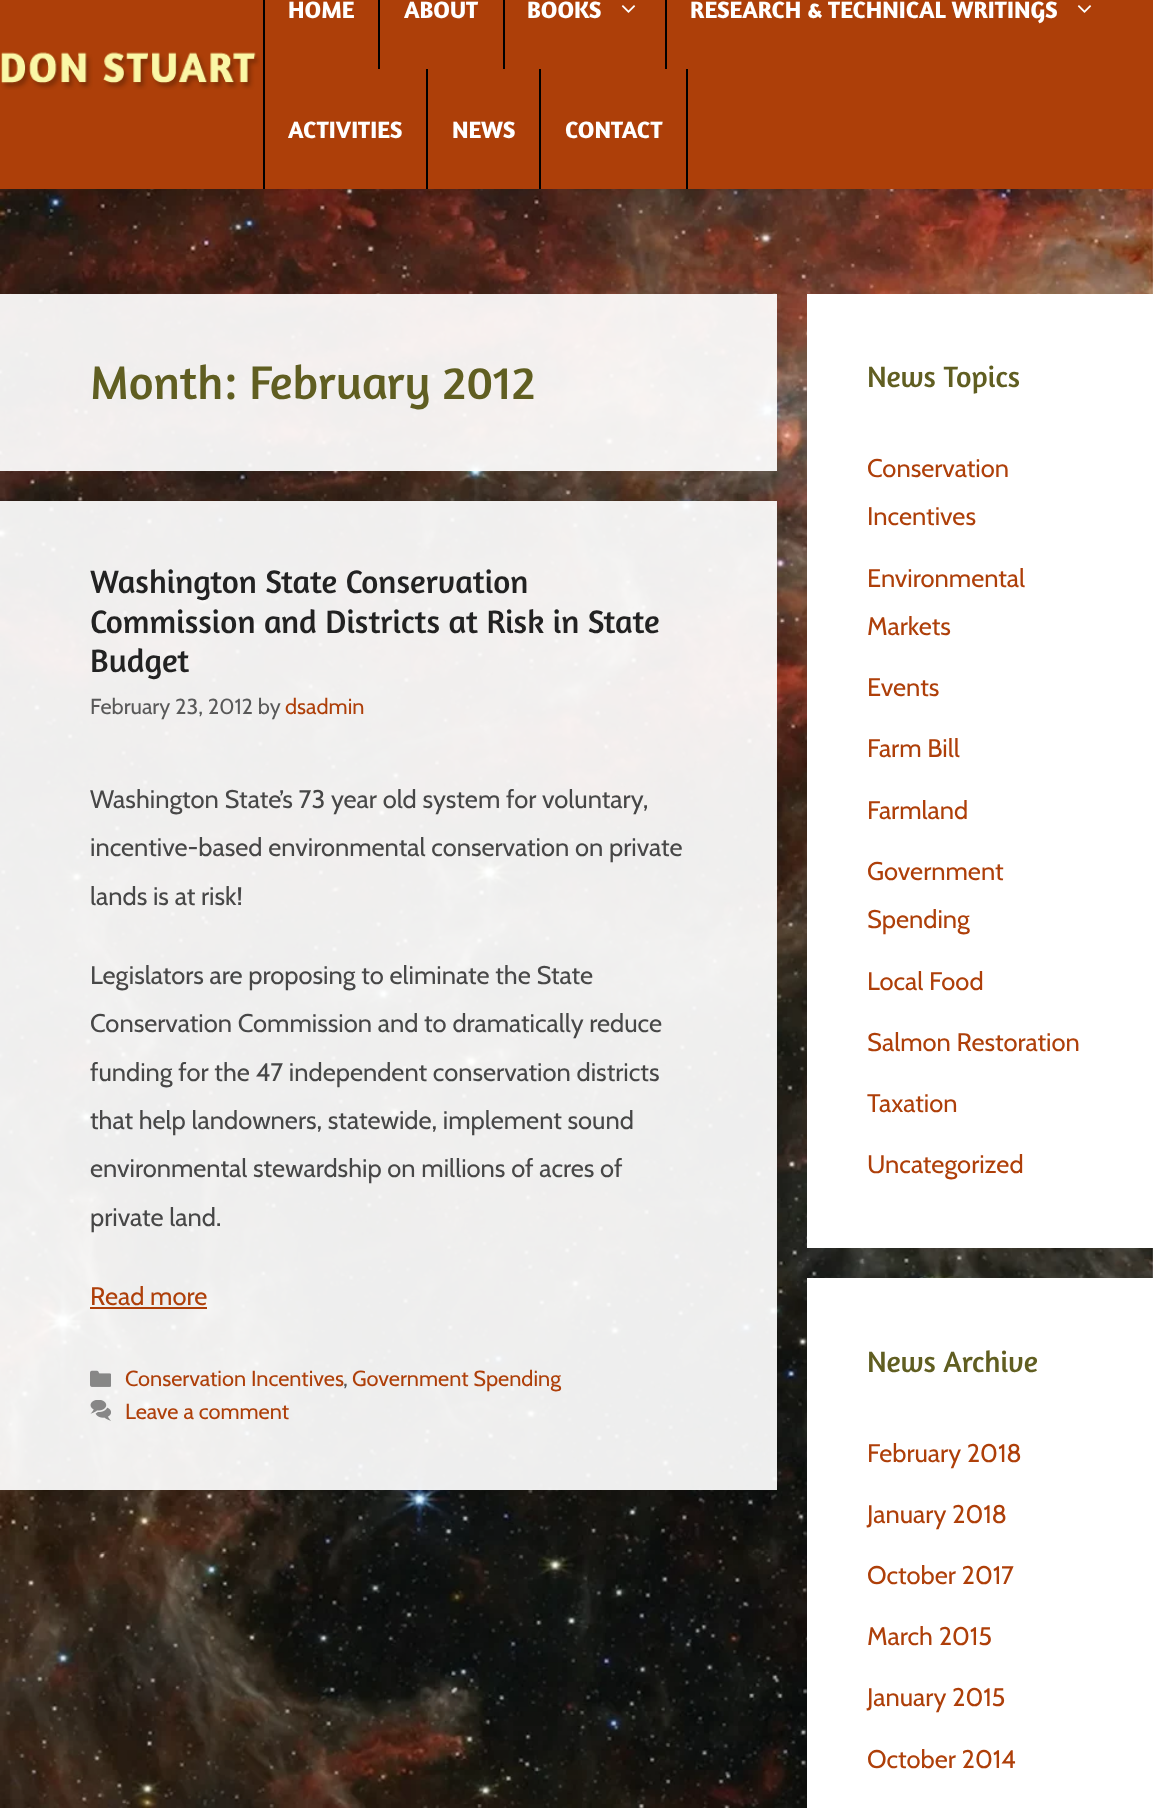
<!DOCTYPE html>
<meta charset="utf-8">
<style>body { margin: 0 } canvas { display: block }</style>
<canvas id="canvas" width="1153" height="1808"></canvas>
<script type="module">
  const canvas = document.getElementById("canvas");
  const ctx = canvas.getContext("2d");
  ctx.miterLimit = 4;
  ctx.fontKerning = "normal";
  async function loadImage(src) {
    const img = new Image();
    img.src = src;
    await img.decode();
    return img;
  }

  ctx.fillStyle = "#ffffff";
  ctx.fillRect(0, 0, 1153, 1808);
  ctx.drawImage(await loadImage("img1.png"), 0, 189, 1153, 1619);
  ctx.fillStyle = "#ad3f09";
  ctx.fillRect(0, 0, 1153, 189);
  ctx.drawImage(await loadImage("img2.png"), 1, 52, 259, 38);
  ctx.fillStyle = "#000000";
  ctx.fillRect(263, 0, 2, 189);
  ctx.font = "bold 24px Amaranth";
  ctx.fillStyle = "#ffffff";
  ctx.fillText("HOME", 288, 18);
  ctx.fillStyle = "#000000";
  ctx.fillRect(378, 0, 2, 69);
  ctx.fillStyle = "#ffffff";
  ctx.fillText("ABOUT", 404, 18);
  ctx.fillStyle = "#000000";
  ctx.fillRect(503, 0, 2, 69);
  ctx.fillStyle = "#ffffff";
  ctx.fillText("BOOKS", 527, 18);
  ctx.drawImage(await loadImage("img3.png"), 621, 5, 15, 8);
  ctx.fillStyle = "#000000";
  ctx.fillRect(665, 0, 2, 69);
  ctx.fillStyle = "#ffffff";
  ctx.fillText("RESEARCH & TECHNICAL WRITINGS", 690, 18);
  ctx.drawImage(await loadImage("img3.png"), 1077, 5, 15, 8);
  ctx.fillText("ACTIVITIES", 288, 138);
  ctx.fillStyle = "#000000";
  ctx.fillRect(426, 69, 2, 120);
  ctx.fillStyle = "#ffffff";
  ctx.fillText("NEWS", 452, 138);
  ctx.fillStyle = "#000000";
  ctx.fillRect(686, 69, 2, 120);
  ctx.fillRect(539, 69, 2, 120);
  ctx.fillStyle = "#ffffff";
  ctx.fillText("CONTACT", 565, 138);
  ctx.fillStyle = "rgba(255, 255, 255, 0.93)";
  ctx.fillRect(0, 294, 777, 177);
  ctx.font = "48px Amaranth";
  ctx.fillStyle = "#605e21";
  ctx.fillText("Month: February 2012", 90, 399);
  ctx.fillStyle = "rgba(255, 255, 255, 0.93)";
  ctx.fillRect(0, 501, 777, 989);
  ctx.font = "33px Amaranth";
  ctx.fillStyle = "#222222";
  ctx.fillText("Washington State Conservation", 90, 593);
  ctx.fillText("Commission and Districts at Risk in State", 90, 633);
  ctx.fillText("Budget", 90, 672);
  ctx.font = "21.75px Cabin";
  ctx.fillStyle = "#595959";
  ctx.fillText("February 23, 2012 by", 90, 714);
  ctx.fillStyle = "#ae3f09";
  ctx.fillText("dsadmin", 285, 714);
  ctx.font = "25.5px Cabin";
  ctx.fillStyle = "#474747";
  ctx.fillText("Washington State’s 73 year old system for voluntary,", 90, 808);
  ctx.fillText("incentive-based environmental conservation on private", 90, 856);
  ctx.fillText("lands is at risk!", 90, 905);
  ctx.fillText("Legislators are proposing to eliminate the State", 90, 984);
  ctx.fillText("Conservation Commission and to dramatically reduce", 90, 1032);
  ctx.fillText("funding for the 47 independent conservation districts", 90, 1081);
  ctx.fillText("that help landowners, statewide, implement sound", 90, 1129);
  ctx.fillText("environmental stewardship on millions of acres of", 90, 1177);
  ctx.fillText("private land.", 90, 1226);
  ctx.fillStyle = "#ae3f09";
  ctx.fillText("Read more", 90, 1305);
  ctx.fillRect(90, 1307, 117, 2);
  ctx.drawImage(await loadImage("img4.png"), 90, 1370, 21, 17);
  ctx.font = "21.75px Cabin";
  ctx.fillText("Conservation Incentives", 125, 1386);
  ctx.fillStyle = "#595959";
  ctx.fillText(",", 343, 1386);
  ctx.fillStyle = "#ae3f09";
  ctx.fillText("Government Spending", 352, 1386);
  ctx.drawImage(await loadImage("img5.png"), 90, 1400, 21, 21);
  ctx.fillText("Leave a comment", 125, 1419);
  ctx.fillStyle = "#ffffff";
  ctx.fillRect(807, 294, 346, 954);
  ctx.font = "30px Amaranth";
  ctx.fillStyle = "#605e21";
  ctx.fillText("News Topics", 867, 387);
  ctx.font = "25.5px Cabin";
  ctx.fillStyle = "#ae3f09";
  ctx.fillText("Conservation", 867, 477);
  ctx.fillText("Incentives", 867, 525);
  ctx.fillText("Environmental", 867, 587);
  ctx.fillText("Markets", 867, 635);
  ctx.fillText("Events", 867, 696);
  ctx.fillText("Farm Bill", 867, 757);
  ctx.fillText("Farmland", 867, 819);
  ctx.fillText("Government", 867, 880);
  ctx.fillText("Spending", 867, 928);
  ctx.fillText("Local Food", 867, 990);
  ctx.fillText("Salmon Restoration", 867, 1051);
  ctx.fillText("Taxation", 867, 1112);
  ctx.fillText("Uncategorized", 867, 1173);
  ctx.fillStyle = "#ffffff";
  ctx.fillRect(807, 1278, 346, 530);
  ctx.font = "30px Amaranth";
  ctx.fillStyle = "#605e21";
  ctx.fillText("News Archive", 867, 1372);
  ctx.font = "25.5px Cabin";
  ctx.fillStyle = "#ae3f09";
  ctx.fillText("February 2018", 867, 1462);
  ctx.fillText("January 2018", 867, 1523);
  ctx.fillText("October 2017", 867, 1584);
  ctx.fillText("March 2015", 867, 1645);
  ctx.fillText("January 2015", 867, 1706);
  ctx.fillText("October 2014", 867, 1768);
</script>
